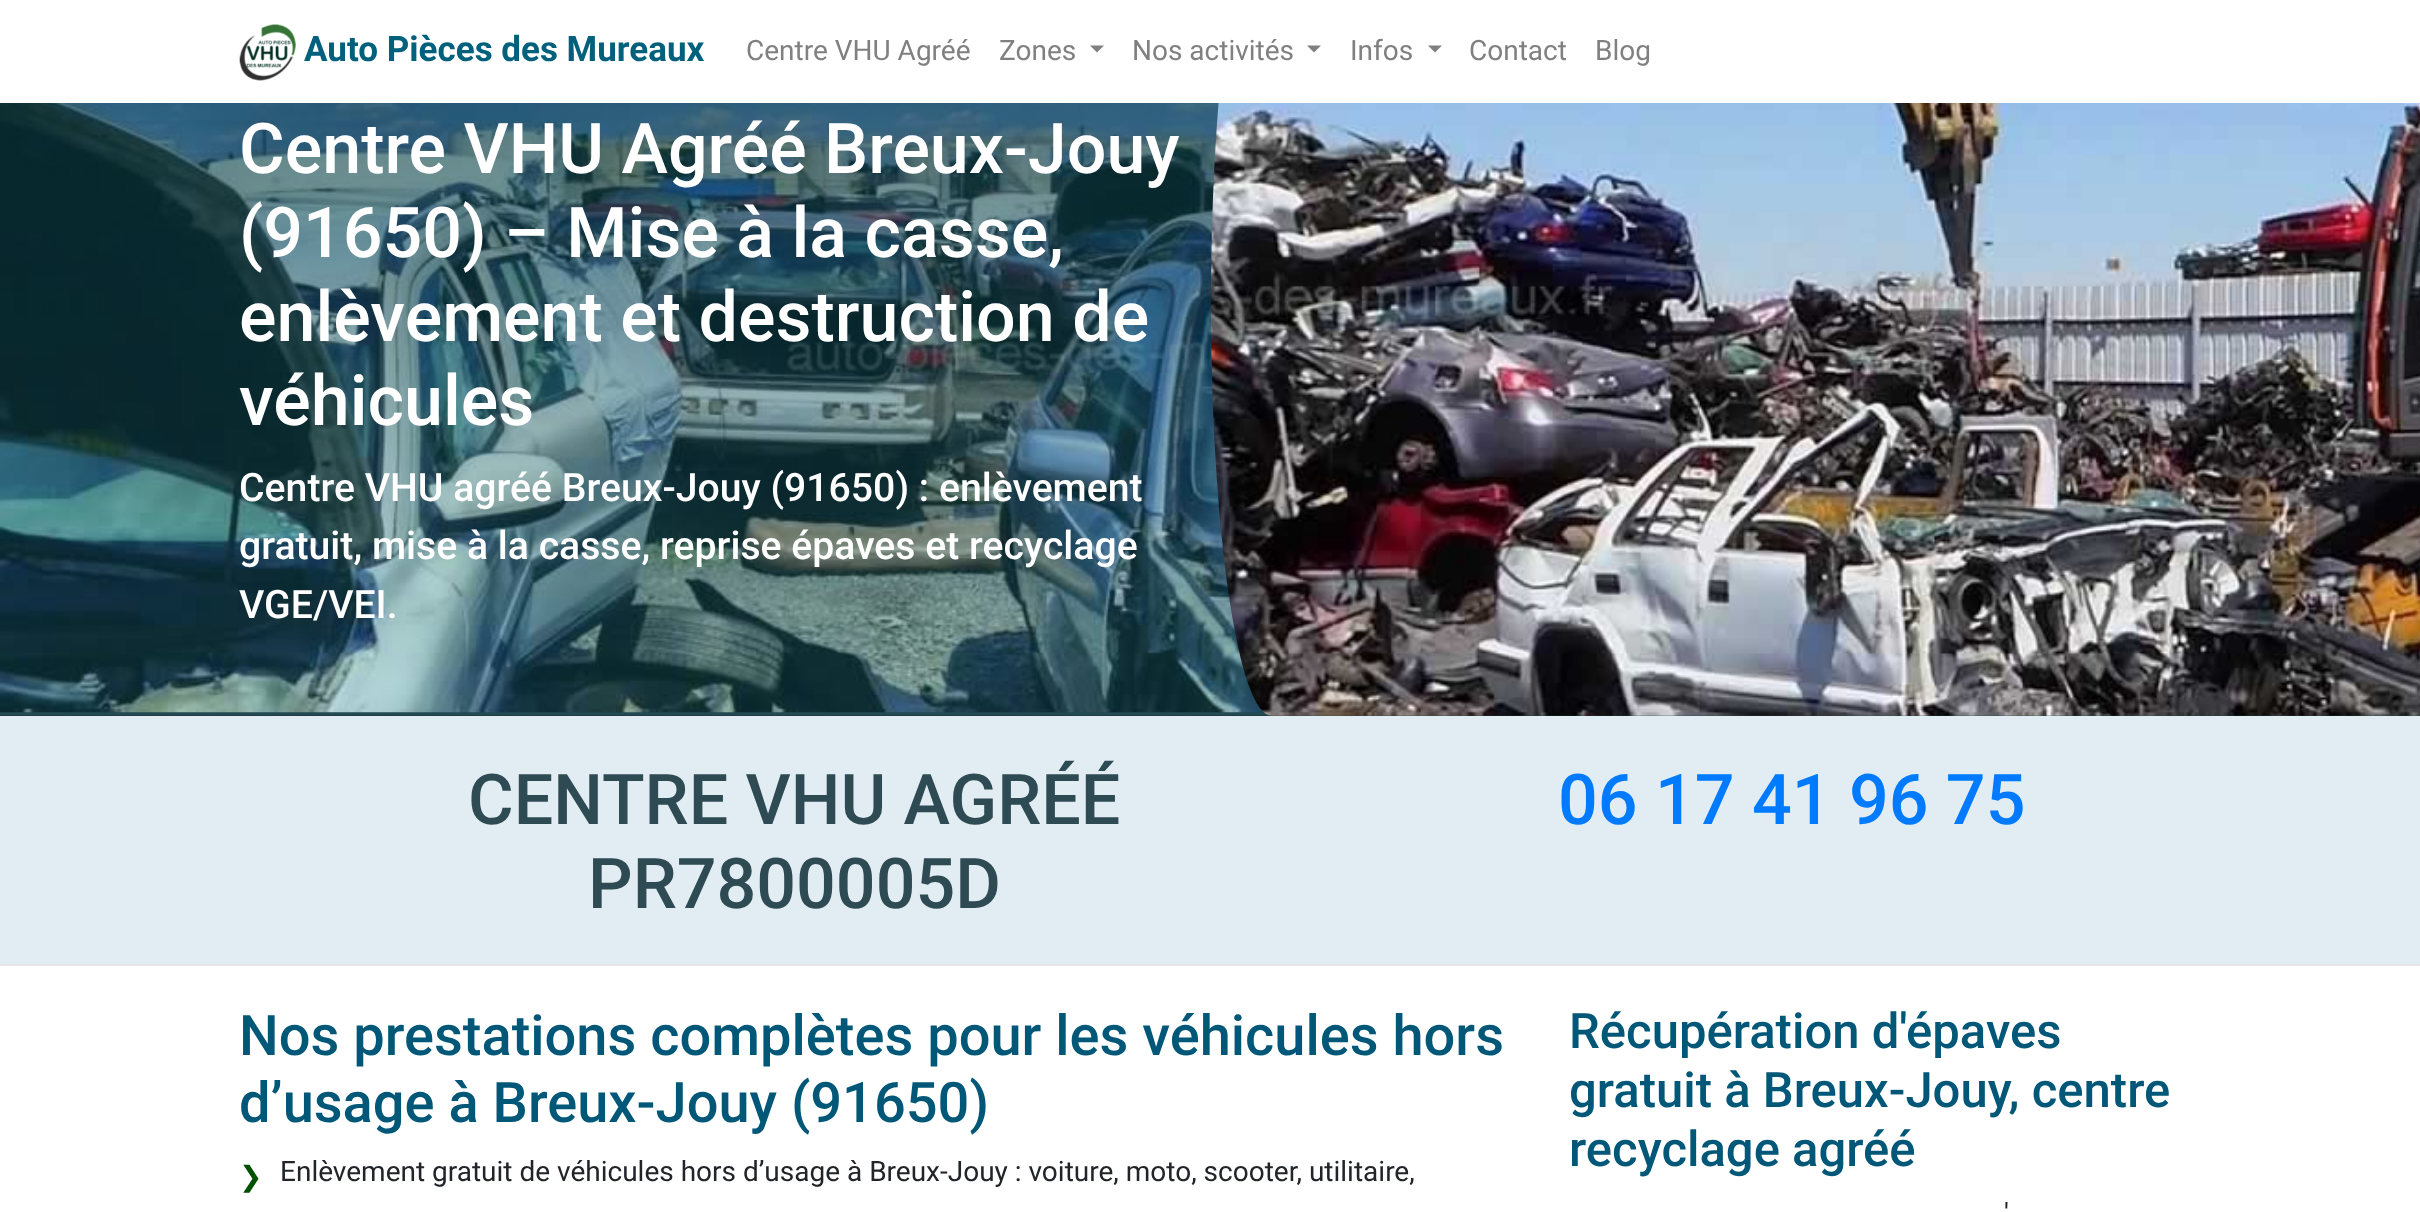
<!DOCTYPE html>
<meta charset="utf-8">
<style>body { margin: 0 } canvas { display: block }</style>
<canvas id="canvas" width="2420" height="1212"></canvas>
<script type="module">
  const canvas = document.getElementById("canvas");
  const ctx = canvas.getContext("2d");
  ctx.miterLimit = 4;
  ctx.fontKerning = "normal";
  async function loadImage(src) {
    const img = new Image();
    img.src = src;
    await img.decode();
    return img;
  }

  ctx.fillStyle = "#ffffff";
  ctx.fillRect(0, 0, 2420, 1212);
  ctx.drawImage(await loadImage("img1.png"), 239, 24, 57, 57);
  ctx.font = "bold 35px Roboto";
  ctx.fillStyle = "#01607c";
  ctx.fillText("Auto Pièces des Mureaux", 304, 61);
  ctx.font = "28px Roboto";
  ctx.fillStyle = "#808080";
  ctx.fillText("Centre VHU Agréé", 746, 60);
  ctx.fillText("Zones", 999, 60);
  ctx.beginPath();
  ctx.moveTo(1090, 45.5);
  ctx.lineTo(1104, 45.5);
  ctx.lineTo(1097, 52.5);
  ctx.closePath();
  ctx.fill();
  ctx.fillText("Nos activités", 1132, 60);
  ctx.beginPath();
  ctx.moveTo(1307, 45.5);
  ctx.lineTo(1321, 45.5);
  ctx.lineTo(1314, 52.5);
  ctx.closePath();
  ctx.fill();
  ctx.fillText("Infos", 1350, 60);
  ctx.beginPath();
  ctx.moveTo(1428, 45.5);
  ctx.lineTo(1442, 45.5);
  ctx.lineTo(1435, 52.5);
  ctx.closePath();
  ctx.fill();
  ctx.fillText("Contact", 1469, 60);
  ctx.fillText("Blog", 1595, 60);
  ctx.fillStyle = "#233139";
  ctx.fillRect(0, 712, 2420, 4);
  ctx.drawImage(await loadImage("img2.png"), 0, 103, 2420, 613);
  ctx.font = "500 70px Roboto";
  ctx.fillStyle = "#ffffff";
  ctx.fillText("Centre VHU Agréé Breux-Jouy", 239, 173);
  ctx.fillText("(91650) – Mise à la casse,", 239, 257);
  ctx.fillText("enlèvement et destruction de", 239, 341);
  ctx.fillText("véhicules", 239, 425);
  ctx.font = "500 39.2px Roboto";
  ctx.fillText("Centre VHU agréé Breux-Jouy (91650) : enlèvement", 239, 501);
  ctx.fillText("gratuit, mise à la casse, reprise épaves et recyclage", 239, 559);
  ctx.fillText("VGE/VEI.", 239, 618);
  ctx.drawImage(await loadImage("img3.png"), 1211, 103, 1209, 613);
  ctx.fillStyle = "#e2ecf3";
  ctx.fillRect(0, 716, 2420, 248);
  ctx.font = "500 70px Roboto";
  ctx.fillStyle = "#2e4a53";
  ctx.fillText("CENTRE VHU AGRÉÉ", 468, 824);
  ctx.fillText("PR7800005D", 588, 908);
  ctx.fillStyle = "#007bff";
  ctx.fillText("06 17 41 96 75", 1558, 824);
  ctx.fillStyle = "#e6e6e6";
  ctx.fillRect(0, 964, 2420, 2);
  ctx.font = "500 56px Roboto";
  ctx.fillStyle = "#005777";
  ctx.fillText("Nos prestations complètes pour les véhicules hors", 239, 1055);
  ctx.fillText("d’usage à Breux-Jouy (91650)", 239, 1122);
  ctx.font = "28px DejaVu Sans";
  ctx.fillStyle = "#015100";
  ctx.fillText("❯", 239, 1186);
  ctx.font = "28px Roboto";
  ctx.fillStyle = "#212529";
  ctx.fillText("Enlèvement gratuit de véhicules hors d’usage à Breux-Jouy : voiture, moto, scooter, utilitaire,", 280, 1181);
  ctx.font = "500 49px Roboto";
  ctx.fillStyle = "#005777";
  ctx.fillText("Récupération d'épaves", 1569, 1048);
  ctx.fillText("gratuit à Breux-Jouy, centre", 1569, 1107);
  ctx.fillText("recyclage agréé", 1569, 1166);
  ctx.font = "28px Roboto";
  ctx.fillStyle = "#212529";
  ctx.fillText("'", 2004, 1223);
</script>
